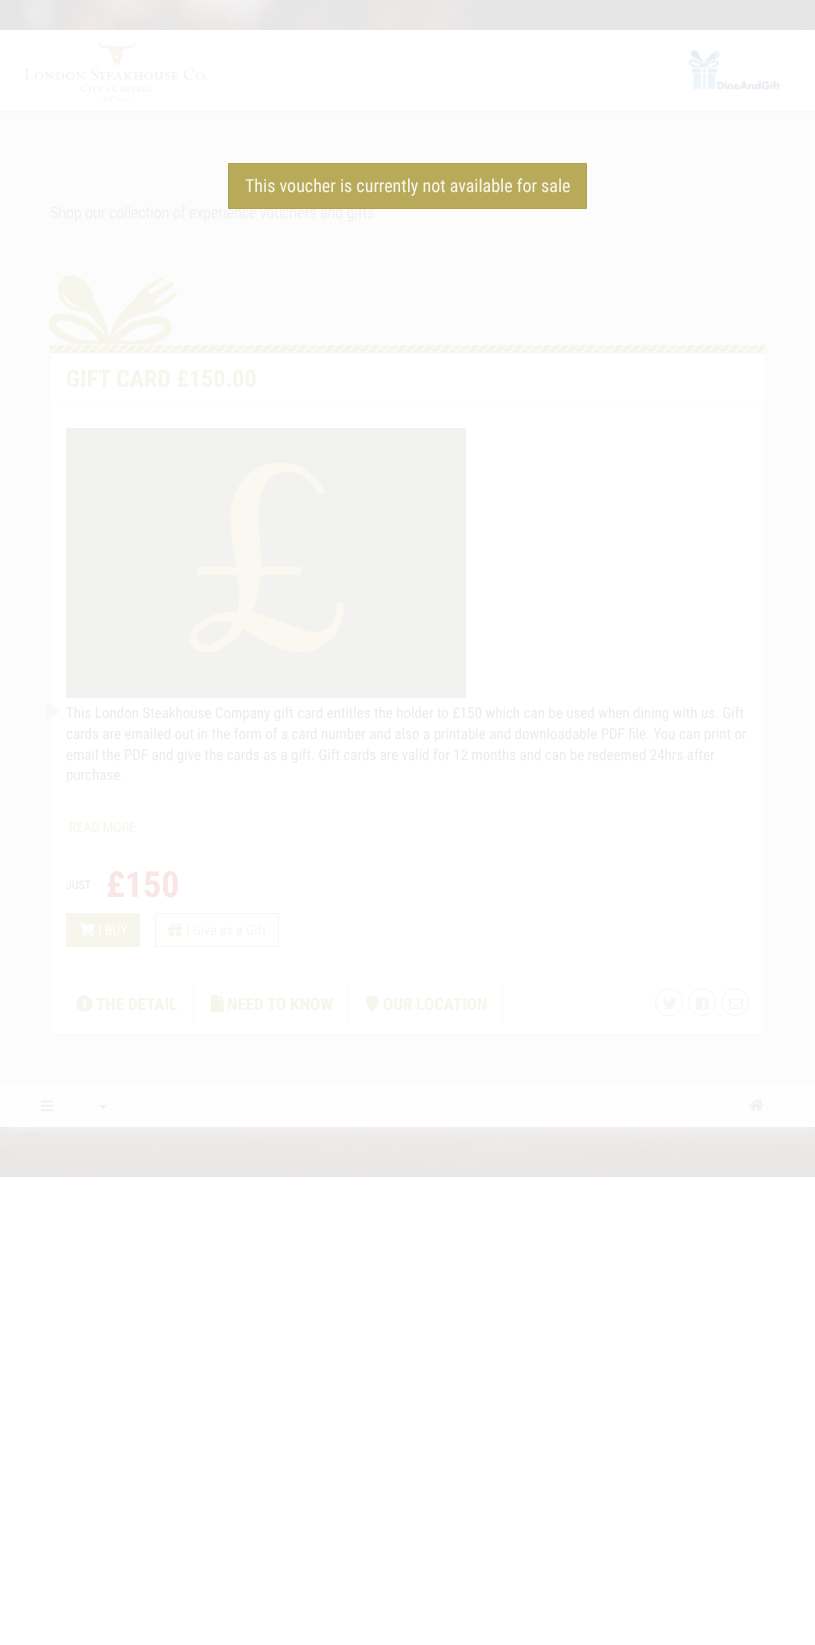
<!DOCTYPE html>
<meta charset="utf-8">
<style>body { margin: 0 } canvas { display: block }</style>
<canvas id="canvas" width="815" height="1645"></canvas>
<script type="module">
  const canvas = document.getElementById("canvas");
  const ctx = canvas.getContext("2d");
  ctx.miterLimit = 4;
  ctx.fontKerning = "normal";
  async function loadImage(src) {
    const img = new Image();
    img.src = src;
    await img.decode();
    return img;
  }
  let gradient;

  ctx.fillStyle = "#ffffff";
  ctx.fillRect(0, 0, 815, 1645);
  ctx.drawImage(await loadImage("img1.png"), 0, 0, 815, 1177);
  ctx.fillStyle = "#f4f4f4";
  ctx.filter = "blur(5px)";
  ctx.beginPath();
  ctx.rect(2, 35, 813, 1095);
  ctx.fill();
  ctx.filter = "none";
  ctx.fillStyle = "#fdfcfc";
  ctx.fillRect(0, 113, 815, 972);
  ctx.fillStyle = "#ffffff";
  ctx.fillRect(0, 30, 815, 81);
  ctx.fillStyle = "#fafafa";
  ctx.fillRect(0, 111, 815, 2);
  ctx.drawImage(await loadImage("img2.png"), 25, 41, 182, 60);
  ctx.drawImage(await loadImage("img3.png"), 688, 49, 93, 42);
  ctx.font = "300 16px Roboto Condensed";
  ctx.fillStyle = "#ececec";
  ctx.fillText("Shop our collection of experience vouchers and gifts", 50, 218);
  ctx.fillStyle = "rgba(176, 161, 70, 0.9)";
  ctx.beginPath();
  ctx.rect(228.5, 163.5, 358, 45);
  ctx.fill();
  ctx.strokeStyle = "#b1a248";
  ctx.stroke();
  ctx.font = "18px Roboto Condensed";
  ctx.fillStyle = "#f7f6ed";
  ctx.fillText("This voucher is currently not available for sale", 245, 192);
  ctx.fillRect(48, 275, 130, 70);
  ctx.drawImage(await loadImage("img4.png"), 35, 275, 160, 70);
  ctx.fillRect(50, 345, 715, 8);
  ctx.drawImage(await loadImage("img5.png"), 50, 345, 715, 8);
  ctx.fillStyle = "#ffffff";
  ctx.fillRect(51, 354, 713, 53);
  ctx.font = "bold 24px Roboto Condensed";
  ctx.fillStyle = "#f7f6ed";
  ctx.fillText("GIFT CARD £150.00", 66, 387);
  ctx.fillStyle = "#ffffff";
  ctx.fillRect(51, 408, 713, 626);
  ctx.fillStyle = "#fafafa";
  ctx.fillRect(764, 408, 1, 627);
  ctx.fillRect(50, 408, 1, 554);
  ctx.drawImage(await loadImage("img6.png"), 66, 428, 400, 270);
  ctx.drawImage(await loadImage("img7.png"), 46, 703, 14, 16);
  ctx.font = "15px Roboto Condensed";
  ctx.fillStyle = "#ececec";
  ctx.fillText("This London Steakhouse Company gift card entitles the holder to £150 which can be used when dining with us. Gift", 66, 718);
  ctx.fillText("cards are emailed out in the form of a card number and also a printable and downloadable PDF file. You can print or", 66, 739);
  ctx.fillText("email the PDF and give the cards as a gift. Gift cards are valid for 12 months and can be redeemed 24hrs after", 66, 760);
  ctx.fillText("purchase.", 66, 780);
  gradient = ctx.createLinearGradient(408, 703, 408, 833);
  gradient.addColorStop(0, "rgba(253, 253, 254, 0)");
  gradient.addColorStop(0.54, "rgba(255, 255, 255, 0)");
  gradient.addColorStop(0.77, "#ffffff");
  ctx.fillStyle = gradient;
  ctx.fillRect(67, 777, 56, 6);
  ctx.font = "14px Roboto Condensed";
  ctx.fillStyle = "#f7f6ed";
  ctx.fillText("READ MORE", 69, 832);
  ctx.font = "12px Roboto Condensed";
  ctx.fillStyle = "#ececec";
  ctx.fillText("JUST", 66, 889);
  ctx.font = "bold 36px Roboto Condensed";
  ctx.fillStyle = "#fae6e6";
  ctx.fillText("£150", 106, 897);
  ctx.fillStyle = "#f7f6ed";
  ctx.fillRect(66, 913, 74, 34);
  ctx.drawImage(await loadImage("img8.png"), 79, 922, 16, 15);
  ctx.font = "14px Roboto Condensed";
  ctx.fillStyle = "#ffffff";
  ctx.fillText("| BUY", 98, 935);
  ctx.strokeStyle = "#f7f6ed";
  ctx.strokeRect(155.5, 913.5, 123, 33);
  ctx.drawImage(await loadImage("img9.png"), 168, 923, 14, 13);
  ctx.fillStyle = "#f7f6ed";
  ctx.fillText("| Give as a Gift", 186, 935);
  ctx.fillStyle = "#fafafa";
  ctx.fillRect(50, 1034, 715, 1);
  ctx.fillRect(50, 962, 1, 73);
  ctx.fillRect(193, 984, 1, 40);
  ctx.drawImage(await loadImage("img10.png"), 76, 995, 17, 17);
  ctx.font = "bold 17px Roboto Condensed";
  ctx.fillStyle = "#f7f6ed";
  ctx.fillText("THE DETAIL", 96, 1010);
  ctx.fillStyle = "#fafafa";
  ctx.fillRect(348, 984, 1, 40);
  ctx.drawImage(await loadImage("img11.png"), 211, 995, 13, 18);
  ctx.fillStyle = "#f7f6ed";
  ctx.fillText("NEED TO KNOW", 227, 1010);
  ctx.fillStyle = "#fafafa";
  ctx.fillRect(502, 984, 1, 40);
  ctx.drawImage(await loadImage("img12.png"), 366, 995, 13, 18);
  ctx.fillStyle = "#f7f6ed";
  ctx.fillText("OUR LOCATION", 383, 1010);
  ctx.beginPath();
  ctx.arc(669, 1002, 13.5, 0, Math.PI * 2);
  ctx.strokeStyle = "#f6f6f7";
  ctx.stroke();
  ctx.drawImage(await loadImage("img13.png"), 663, 998, 14, 12);
  ctx.beginPath();
  ctx.arc(702, 1002, 13.5, 0, Math.PI * 2);
  ctx.stroke();
  ctx.drawImage(await loadImage("img14.png"), 696, 997, 13, 13);
  ctx.beginPath();
  ctx.arc(735, 1002, 13.5, 0, Math.PI * 2);
  ctx.stroke();
  ctx.drawImage(await loadImage("img15.png"), 729, 998, 14, 11);
  ctx.fillStyle = "#fefefe";
  ctx.beginPath();
  ctx.rect(0.5, 1085.5, 814, 41);
  ctx.fill();
  ctx.strokeStyle = "#fdfdfd";
  ctx.stroke();
  ctx.drawImage(await loadImage("img16.png"), 41, 1100, 13, 12);
  ctx.fillStyle = "#f1f1f1";
  ctx.beginPath();
  ctx.moveTo(99, 1105);
  ctx.lineTo(107, 1105);
  ctx.lineTo(103, 1109);
  ctx.closePath();
  ctx.fill();
  ctx.drawImage(await loadImage("img17.png"), 749, 1099, 15, 12);
</script>
